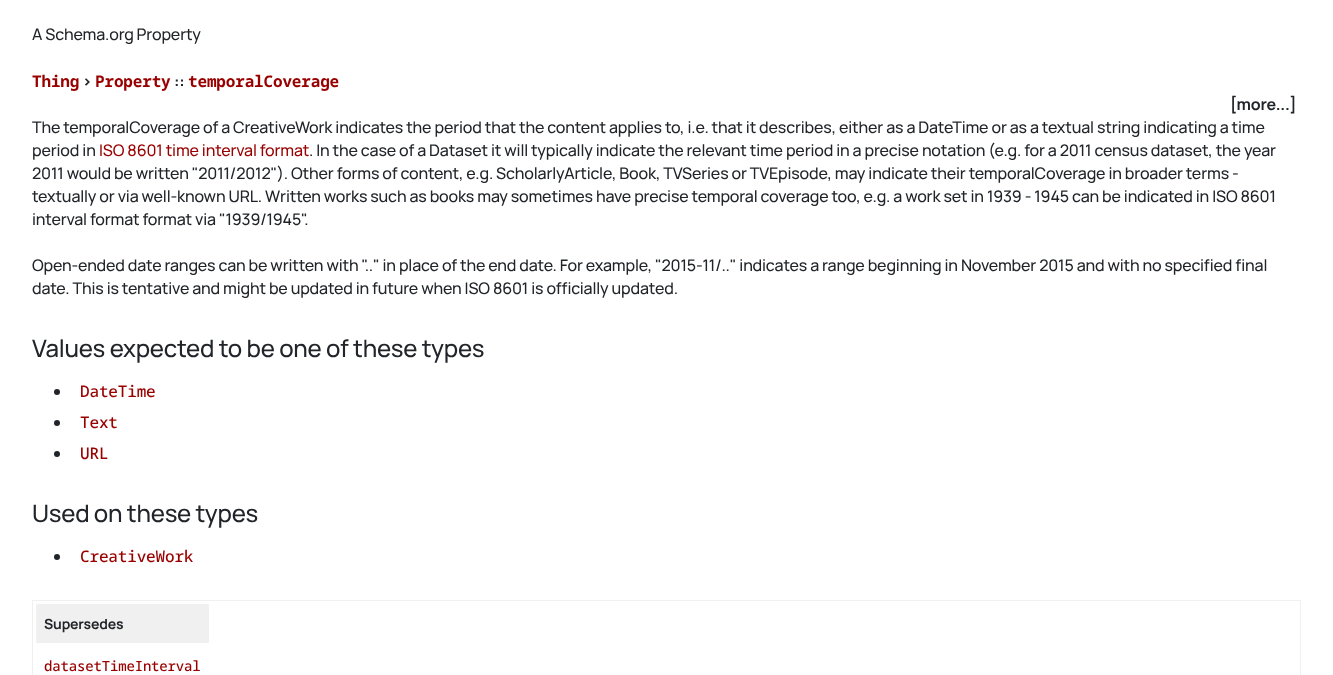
<!DOCTYPE html>
<meta charset="utf-8">
<style>body { margin: 0 } canvas { display: block }</style>
<canvas id="canvas" width="1333" height="675"></canvas>
<script type="module">
  const canvas = document.getElementById("canvas");
  const ctx = canvas.getContext("2d");
  ctx.miterLimit = 4;
  ctx.fontKerning = "normal";

  ctx.fillStyle = "#ffffff";
  ctx.fillRect(0, 0, 1333, 675);
  ctx.letterSpacing = "-0.16px";
  ctx.font = "500 16px Manrope";
  ctx.fillStyle = "#212529";
  ctx.fillText("A Schema.org Property", 32, 40);
  ctx.font = "bold 16px Noto Sans Mono";
  ctx.fillStyle = "#990000";
  ctx.fillText("Thing", 32, 87);
  ctx.font = "bold 16px Manrope";
  ctx.fillStyle = "#212529";
  ctx.fillText(">", 82, 87);
  ctx.font = "bold 16px Noto Sans Mono";
  ctx.fillStyle = "#990000";
  ctx.fillText("Property", 95, 87);
  ctx.font = "bold 16px Manrope";
  ctx.fillStyle = "#212529";
  ctx.fillText("::", 174, 87);
  ctx.font = "bold 16px Noto Sans Mono";
  ctx.fillStyle = "#990000";
  ctx.fillText("temporalCoverage", 188, 87);
  ctx.font = "bold 16px Manrope";
  ctx.fillStyle = "#212529";
  ctx.fillText("[more...]", 1230, 110);
  ctx.font = "500 16px Manrope";
  ctx.fillText("The temporalCoverage of a CreativeWork indicates the period that the content applies to, i.e. that it describes, either as a DateTime or as a textual string indicating a time", 32, 133);
  ctx.fillText("period in", 32, 156);
  ctx.fillStyle = "#990000";
  ctx.fillText("ISO 8601 time interval format", 99, 156);
  ctx.fillStyle = "#212529";
  ctx.fillText(". In the case of a Dataset it will typically indicate the relevant time period in a precise notation (e.g. for a 2011 census dataset, the year", 309, 156);
  ctx.fillText("2011 would be written \"2011/2012\"). Other forms of content, e.g. ScholarlyArticle, Book, TVSeries or TVEpisode, may indicate their temporalCoverage in broader terms -", 32, 179);
  ctx.fillText("textually or via well-known URL. Written works such as books may sometimes have precise temporal coverage too, e.g. a work set in 1939 - 1945 can be indicated in ISO 8601", 32, 202);
  ctx.fillText("interval format format via \"1939/1945\".", 32, 225);
  ctx.fillText("Open-ended date ranges can be written with \"..\" in place of the end date. For example, \"2015-11/..\" indicates a range beginning in November 2015 and with no specified final", 32, 271);
  ctx.fillText("date. This is tentative and might be updated in future when ISO 8601 is officially updated.", 32, 294);
  ctx.letterSpacing = "-0.25px";
  ctx.font = "500 24px Manrope";
  ctx.fillText("Values expected to be one of these types", 32, 357);
  ctx.beginPath();
  ctx.arc(57, 392, 3, 0, Math.PI * 2);
  ctx.fill();
  ctx.letterSpacing = "-0.16px";
  ctx.font = "500 16px Noto Sans Mono";
  ctx.fillStyle = "#990000";
  ctx.fillText("DateTime", 80, 397);
  ctx.fillStyle = "#212529";
  ctx.beginPath();
  ctx.arc(57, 423, 3, 0, Math.PI * 2);
  ctx.fill();
  ctx.fillStyle = "#990000";
  ctx.fillText("Text", 80, 428);
  ctx.fillStyle = "#212529";
  ctx.beginPath();
  ctx.arc(57, 454, 3, 0, Math.PI * 2);
  ctx.fill();
  ctx.fillStyle = "#990000";
  ctx.fillText("URL", 80, 459);
  ctx.letterSpacing = "-0.25px";
  ctx.font = "500 24px Manrope";
  ctx.fillStyle = "#212529";
  ctx.fillText("Used on these types", 32, 522);
  ctx.beginPath();
  ctx.arc(57, 557, 3, 0, Math.PI * 2);
  ctx.fill();
  ctx.letterSpacing = "-0.16px";
  ctx.font = "500 16px Noto Sans Mono";
  ctx.fillStyle = "#990000";
  ctx.fillText("CreativeWork", 80, 562);
  ctx.strokeStyle = "#f0f0f0";
  ctx.strokeRect(32.5, 600.5, 1268, 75);
  ctx.fillStyle = "#f0f0f0";
  ctx.fillRect(36, 604, 173, 39);
  ctx.font = "bold 14px Manrope";
  ctx.fillStyle = "#212529";
  ctx.fillText("Supersedes", 44, 629);
  ctx.font = "500 14px Noto Sans Mono";
  ctx.fillStyle = "#990000";
  ctx.fillText("datasetTimeInterval", 44, 671);
</script>
